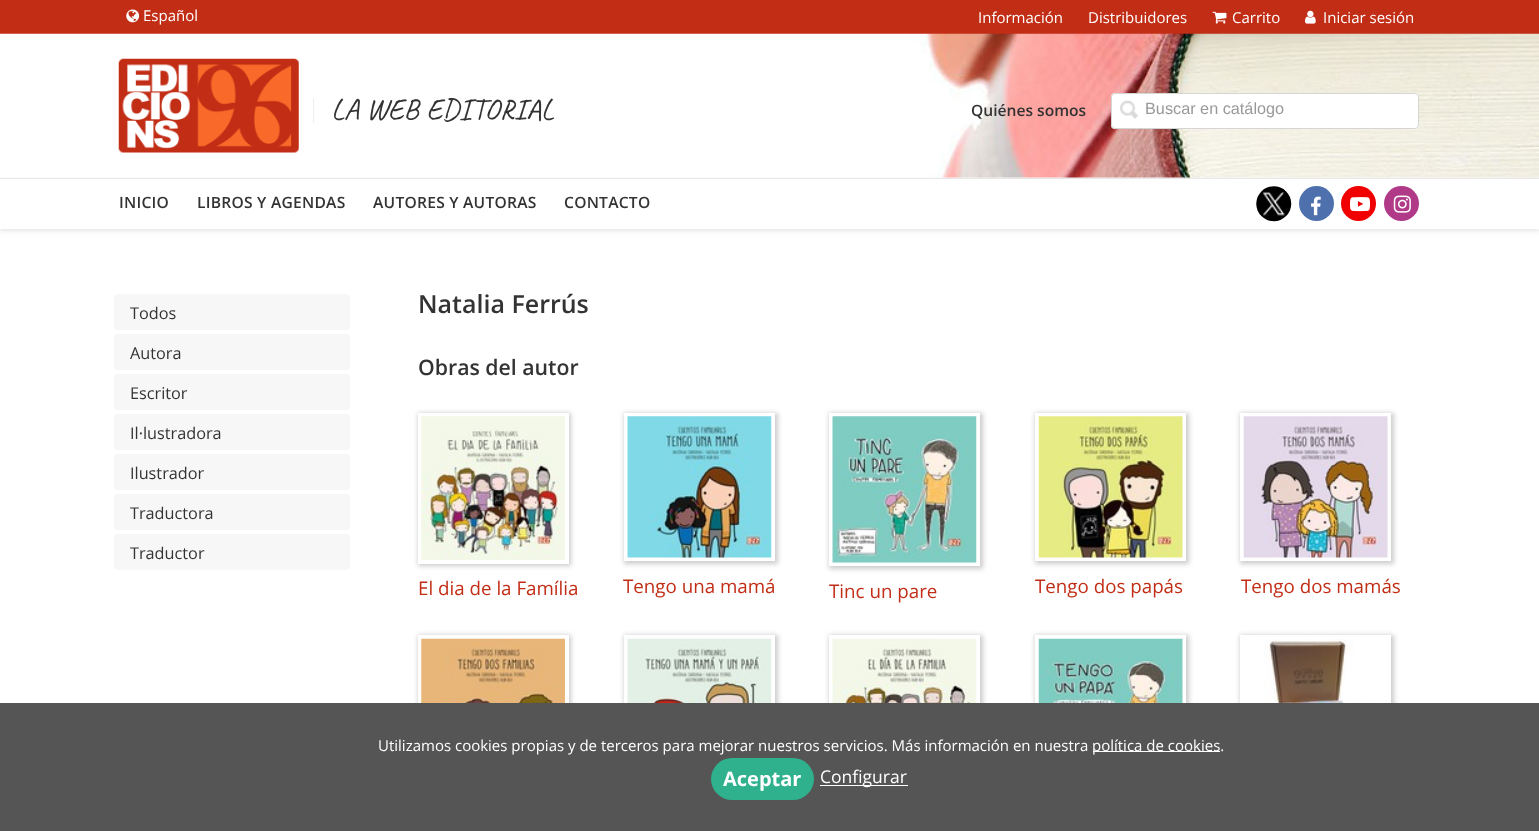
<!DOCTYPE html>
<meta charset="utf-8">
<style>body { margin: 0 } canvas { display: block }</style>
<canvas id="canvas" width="1539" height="831"></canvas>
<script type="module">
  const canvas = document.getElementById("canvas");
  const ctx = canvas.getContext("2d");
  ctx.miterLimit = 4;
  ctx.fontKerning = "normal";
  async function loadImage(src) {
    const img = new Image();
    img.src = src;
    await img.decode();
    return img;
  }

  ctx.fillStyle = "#ffffff";
  ctx.fillRect(0, 0, 1539, 831);
  ctx.fillStyle = "rgba(0, 0, 0, 0.1)";
  ctx.filter = "blur(2.5px)";
  ctx.beginPath();
  ctx.rect(0, 3, 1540, 228);
  ctx.fill();
  ctx.filter = "none";
  ctx.fillStyle = "#f7f7f7";
  ctx.fillRect(0, 177, 1539, 1);
  ctx.fillStyle = "#c22d16";
  ctx.fillRect(0, 0, 1539, 34);
  ctx.drawImage(await loadImage("img1.png"), 126, 9, 14, 14);
  ctx.font = "15px Open Sans";
  ctx.fillStyle = "#ffffff";
  ctx.fillText("Español", 143, 21);
  ctx.fillText("Información", 978, 23);
  ctx.fillText("Distribuidores", 1088, 23);
  ctx.drawImage(await loadImage("img2.png"), 1212, 11, 15, 13);
  ctx.fillText("Carrito", 1232, 23);
  ctx.drawImage(await loadImage("img3.png"), 1305, 10, 11, 14);
  ctx.fillText("Iniciar sesión", 1323, 23);
  ctx.drawImage(await loadImage("img4.png"), 0, 33, 1539, 145);
  ctx.drawImage(await loadImage("img5.png"), 118, 58, 181, 95);
  ctx.fillStyle = "#eeeeee";
  ctx.fillRect(313, 98, 1, 25);
  ctx.font = "30px Caveat";
  ctx.fillStyle = "#333333";
  ctx.fillText("LA WEB EDITORIAL", 331, 119);
  ctx.font = "600 15.6px Open Sans";
  ctx.fillText("Quiénes somos", 971, 116);
  ctx.fillStyle = "#ffffff";
  ctx.beginPath();
  ctx.roundRect(1111, 93, 308, 36, 4);
  ctx.fill();
  ctx.drawImage(await loadImage("img6.png"), 1120, 100, 18, 19);
  ctx.beginPath();
  ctx.roundRect(1111.5, 93.5, 307, 35, 3.5);
  ctx.strokeStyle = "#d5d5d5";
  ctx.stroke();
  ctx.font = "16.25px Liberation Sans";
  ctx.fillStyle = "#999999";
  ctx.fillText("Buscar en catálogo", 1145, 114);
  ctx.fillStyle = "#ffffff";
  ctx.fillRect(0, 179, 1539, 50);
  ctx.fillStyle = "#e8e8e8";
  ctx.fillRect(0, 178, 1539, 1);
  ctx.letterSpacing = "0.25px";
  ctx.font = "600 15.6px Open Sans";
  ctx.fillStyle = "#333333";
  ctx.fillText("INICIO", 119, 208);
  ctx.fillText("LIBROS Y AGENDAS", 197, 208);
  ctx.fillText("AUTORES Y AUTORAS", 373, 208);
  ctx.fillText("CONTACTO", 564, 208);
  ctx.drawImage(await loadImage("img7.png"), 1256, 186, 36, 36);
  ctx.fillStyle = "#4e71ae";
  ctx.beginPath();
  ctx.arc(1316.5, 203.5, 17.5, 0, Math.PI * 2);
  ctx.fill();
  ctx.drawImage(await loadImage("img8.png"), 1311, 196, 10, 20);
  ctx.fillStyle = "#f00000";
  ctx.beginPath();
  ctx.arc(1358.5, 203.5, 17.5, 0, Math.PI * 2);
  ctx.fill();
  ctx.drawImage(await loadImage("img9.png"), 1350, 197, 20, 15);
  ctx.fillStyle = "#b03a88";
  ctx.beginPath();
  ctx.arc(1401.5, 203.5, 17.5, 0, Math.PI * 2);
  ctx.fill();
  ctx.drawImage(await loadImage("img10.png"), 1393, 195, 18, 18);
  ctx.fillStyle = "#f7f7f7";
  ctx.beginPath();
  ctx.roundRect(114, 294, 236, 36, 4);
  ctx.fill();
  ctx.letterSpacing = "0px";
  ctx.font = "16.25px Open Sans";
  ctx.fillStyle = "#333333";
  ctx.fillText("Todos", 130, 319);
  ctx.fillStyle = "#f7f7f7";
  ctx.beginPath();
  ctx.roundRect(114, 334, 236, 36, 4);
  ctx.fill();
  ctx.fillStyle = "#333333";
  ctx.fillText("Autora", 130, 359);
  ctx.fillStyle = "#f7f7f7";
  ctx.beginPath();
  ctx.roundRect(114, 374, 236, 36, 4);
  ctx.fill();
  ctx.fillStyle = "#333333";
  ctx.fillText("Escritor", 130, 399);
  ctx.fillStyle = "#f7f7f7";
  ctx.beginPath();
  ctx.roundRect(114, 414, 236, 36, 4);
  ctx.fill();
  ctx.fillStyle = "#333333";
  ctx.fillText("Il·lustradora", 130, 439);
  ctx.fillStyle = "#f7f7f7";
  ctx.beginPath();
  ctx.roundRect(114, 454, 236, 36, 4);
  ctx.fill();
  ctx.fillStyle = "#333333";
  ctx.fillText("Ilustrador", 130, 479);
  ctx.fillStyle = "#f7f7f7";
  ctx.beginPath();
  ctx.roundRect(114, 494, 236, 36, 4);
  ctx.fill();
  ctx.fillStyle = "#333333";
  ctx.fillText("Traductora", 130, 519);
  ctx.fillStyle = "#f7f7f7";
  ctx.beginPath();
  ctx.roundRect(114, 534, 236, 36, 4);
  ctx.fill();
  ctx.fillStyle = "#333333";
  ctx.fillText("Traductor", 130, 559);
  ctx.font = "600 25px Open Sans";
  ctx.fillText("Natalia Ferrús", 418, 313);
  ctx.font = "600 21.25px Open Sans";
  ctx.fillText("Obras del autor", 418, 375);
  ctx.fillStyle = "rgba(0, 0, 0, 0.2)";
  ctx.filter = "blur(2.5px)";
  ctx.beginPath();
  ctx.rect(418, 413, 153, 153);
  ctx.fill();
  ctx.filter = "none";
  ctx.fillStyle = "#ffffff";
  ctx.fillRect(418, 413, 151, 151);
  ctx.drawImage(await loadImage("img11.png"), 421, 416, 144, 144);
  ctx.font = "18.75px Open Sans";
  ctx.fillStyle = "#c22d16";
  ctx.fillText("El dia de la Família", 418, 595);
  ctx.save();
  ctx.beginPath();
  ctx.moveTo(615, 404);
  ctx.lineTo(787, 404);
  ctx.lineTo(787, 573);
  ctx.lineTo(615, 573);
  ctx.closePath();
  ctx.moveTo(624, 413);
  ctx.lineTo(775, 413);
  ctx.lineTo(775, 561);
  ctx.lineTo(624, 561);
  ctx.closePath();
  ctx.clip("evenodd");
  ctx.fillStyle = "rgba(0, 0, 0, 0.2)";
  ctx.filter = "blur(2.5px)";
  ctx.beginPath();
  ctx.rect(624, 413, 154, 151);
  ctx.fill();
  ctx.filter = "none";
  ctx.restore();
  ctx.drawImage(await loadImage("img12.png"), 627, 416, 145, 142);
  ctx.fillText("Tengo una mamá", 623, 593);
  ctx.save();
  ctx.beginPath();
  ctx.moveTo(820, 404);
  ctx.lineTo(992, 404);
  ctx.lineTo(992, 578);
  ctx.lineTo(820, 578);
  ctx.closePath();
  ctx.moveTo(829, 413);
  ctx.lineTo(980, 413);
  ctx.lineTo(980, 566);
  ctx.lineTo(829, 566);
  ctx.closePath();
  ctx.clip("evenodd");
  ctx.fillStyle = "rgba(0, 0, 0, 0.2)";
  ctx.filter = "blur(2.5px)";
  ctx.beginPath();
  ctx.rect(829, 413, 154, 156);
  ctx.fill();
  ctx.filter = "none";
  ctx.restore();
  ctx.drawImage(await loadImage("img13.png"), 832, 416, 145, 147);
  ctx.fillText("Tinc un pare", 829, 598);
  ctx.save();
  ctx.beginPath();
  ctx.moveTo(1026, 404);
  ctx.lineTo(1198, 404);
  ctx.lineTo(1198, 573);
  ctx.lineTo(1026, 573);
  ctx.closePath();
  ctx.moveTo(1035, 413);
  ctx.lineTo(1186, 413);
  ctx.lineTo(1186, 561);
  ctx.lineTo(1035, 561);
  ctx.closePath();
  ctx.clip("evenodd");
  ctx.fillStyle = "rgba(0, 0, 0, 0.2)";
  ctx.filter = "blur(2.5px)";
  ctx.beginPath();
  ctx.rect(1035, 413, 154, 151);
  ctx.fill();
  ctx.filter = "none";
  ctx.restore();
  ctx.drawImage(await loadImage("img14.png"), 1038, 416, 145, 142);
  ctx.fillText("Tengo dos papás", 1035, 593);
  ctx.save();
  ctx.beginPath();
  ctx.moveTo(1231, 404);
  ctx.lineTo(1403, 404);
  ctx.lineTo(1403, 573);
  ctx.lineTo(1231, 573);
  ctx.closePath();
  ctx.moveTo(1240, 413);
  ctx.lineTo(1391, 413);
  ctx.lineTo(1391, 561);
  ctx.lineTo(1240, 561);
  ctx.closePath();
  ctx.clip("evenodd");
  ctx.fillStyle = "rgba(0, 0, 0, 0.2)";
  ctx.filter = "blur(2.5px)";
  ctx.beginPath();
  ctx.rect(1240, 413, 154, 151);
  ctx.fill();
  ctx.filter = "none";
  ctx.restore();
  ctx.drawImage(await loadImage("img15.png"), 1243, 416, 145, 142);
  ctx.fillText("Tengo dos mamás", 1241, 593);
  ctx.fillStyle = "rgba(0, 0, 0, 0.2)";
  ctx.filter = "blur(2.5px)";
  ctx.beginPath();
  ctx.rect(418, 635, 153, 151);
  ctx.fill();
  ctx.filter = "none";
  ctx.fillStyle = "#ffffff";
  ctx.fillRect(418, 635, 151, 68);
  ctx.drawImage(await loadImage("img16.png"), 421, 638, 144, 65);
  ctx.fillStyle = "rgba(0, 0, 0, 0.2)";
  ctx.filter = "blur(2.5px)";
  ctx.beginPath();
  ctx.rect(624, 635, 154, 151);
  ctx.fill();
  ctx.filter = "none";
  ctx.fillStyle = "#ffffff";
  ctx.fillRect(624, 635, 151, 68);
  ctx.drawImage(await loadImage("img17.png"), 627, 638, 145, 65);
  ctx.fillStyle = "rgba(0, 0, 0, 0.2)";
  ctx.filter = "blur(2.5px)";
  ctx.beginPath();
  ctx.rect(829, 635, 154, 151);
  ctx.fill();
  ctx.filter = "none";
  ctx.fillStyle = "#ffffff";
  ctx.fillRect(829, 635, 151, 68);
  ctx.drawImage(await loadImage("img18.png"), 832, 638, 145, 65);
  ctx.fillStyle = "rgba(0, 0, 0, 0.2)";
  ctx.filter = "blur(2.5px)";
  ctx.beginPath();
  ctx.rect(1035, 635, 154, 156);
  ctx.fill();
  ctx.filter = "none";
  ctx.fillStyle = "#ffffff";
  ctx.fillRect(1035, 635, 151, 68);
  ctx.drawImage(await loadImage("img19.png"), 1038, 638, 145, 65);
  ctx.fillStyle = "rgba(0, 0, 0, 0.2)";
  ctx.filter = "blur(2.5px)";
  ctx.beginPath();
  ctx.rect(1240, 635, 154, 126);
  ctx.fill();
  ctx.filter = "none";
  ctx.fillStyle = "#ffffff";
  ctx.fillRect(1240, 635, 151, 68);
  ctx.drawImage(await loadImage("img20.png"), 1244, 639, 141, 64);
  ctx.fillStyle = "#555555";
  ctx.fillRect(0, 703, 1539, 128);
  ctx.font = "15px Open Sans";
  ctx.fillStyle = "#ffffff";
  ctx.fillText("Utilizamos cookies propias y de terceros para mejorar nuestros servicios. Más información en nuestra", 378, 751);
  ctx.fillRect(1093, 751, 127, 1);
  ctx.fillText("política de cookies.", 1092, 751);
  ctx.fillStyle = "#2fb18d";
  ctx.beginPath();
  ctx.roundRect(711, 758, 103, 42, 21);
  ctx.fill();
  ctx.font = "bold 20px Open Sans";
  ctx.fillStyle = "#ffffff";
  ctx.fillText("Aceptar", 723, 786);
  ctx.fillRect(820, 785, 88, 1);
  ctx.font = "17.5px Open Sans";
  ctx.fillText("Configurar", 820, 783);
</script>
